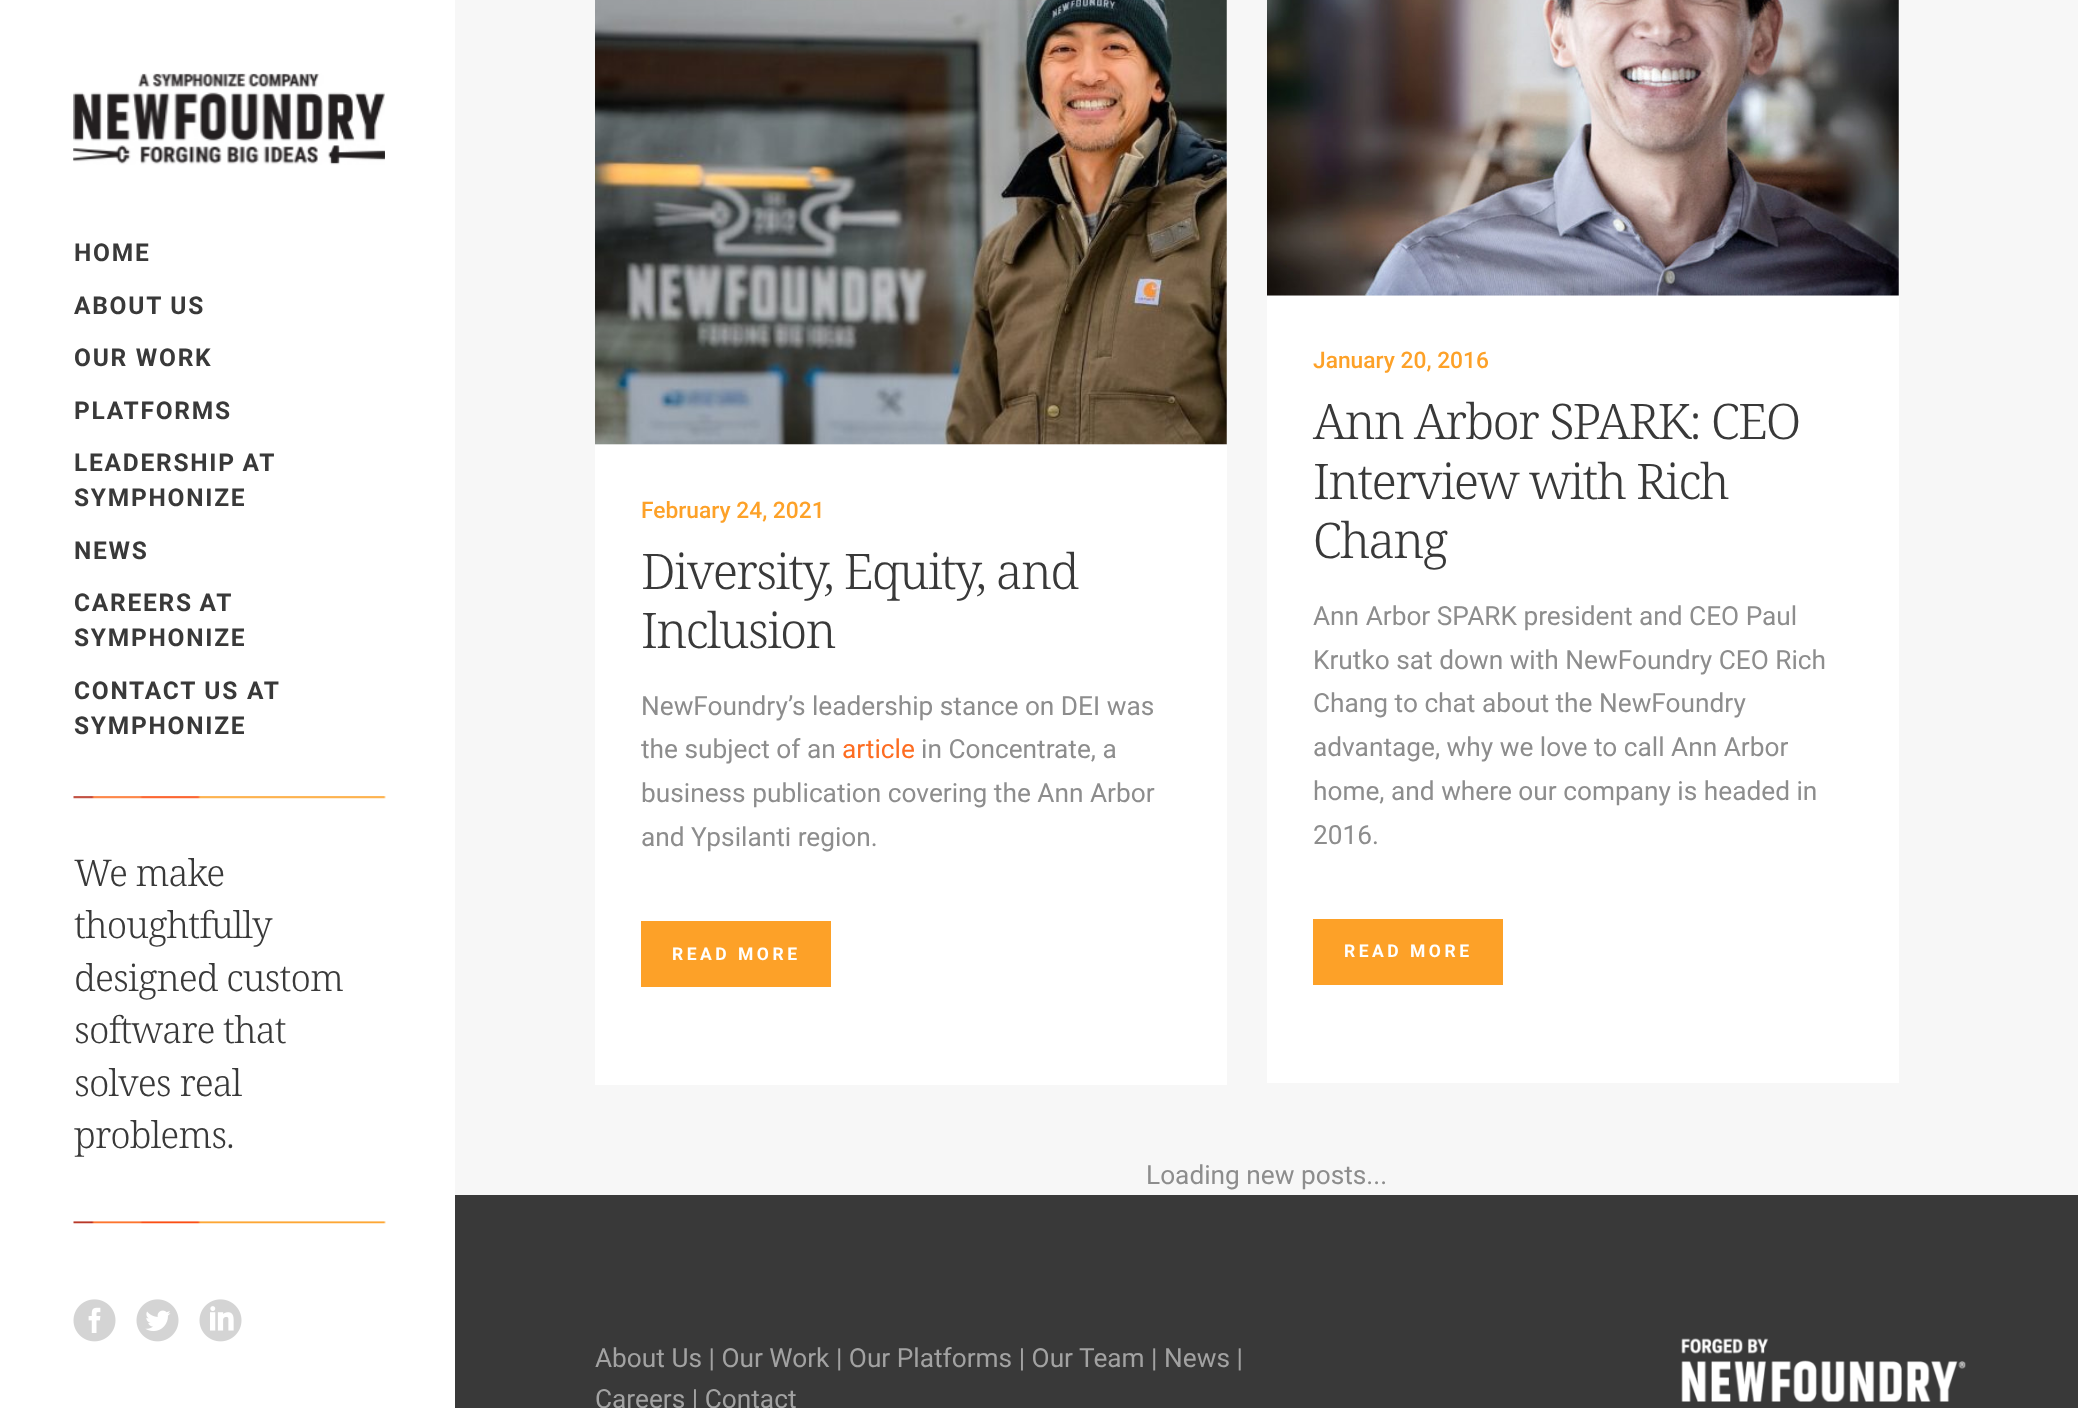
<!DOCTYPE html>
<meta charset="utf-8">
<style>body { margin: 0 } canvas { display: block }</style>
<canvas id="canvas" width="2078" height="1408"></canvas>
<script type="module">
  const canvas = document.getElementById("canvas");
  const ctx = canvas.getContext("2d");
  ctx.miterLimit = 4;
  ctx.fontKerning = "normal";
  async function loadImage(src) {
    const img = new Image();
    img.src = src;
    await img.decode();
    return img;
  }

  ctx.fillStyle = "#f7f7f7";
  ctx.fillRect(0, 0, 2078, 1408);
  ctx.fillStyle = "#ffffff";
  ctx.fillRect(0, 0, 455, 1408);
  ctx.drawImage(await loadImage("img1.png"), 73, 73, 312, 92);
  ctx.drawImage(await loadImage("img2.png"), 73, 93, 312, 68);
  ctx.letterSpacing = "1.75px";
  ctx.font = "bold 24.5px Roboto";
  ctx.fillStyle = "#393939";
  ctx.fillText("HOME", 74, 261);
  ctx.fillText("ABOUT US", 74, 314);
  ctx.fillText("OUR WORK", 74, 366);
  ctx.fillText("PLATFORMS", 74, 419);
  ctx.wordSpacing = "-1px";
  ctx.fillText("LEADERSHIP AT", 74, 471);
  ctx.wordSpacing = "0px";
  ctx.fillText("SYMPHONIZE", 74, 506);
  ctx.fillText("NEWS", 74, 559);
  ctx.wordSpacing = "-1px";
  ctx.fillText("CAREERS AT", 74, 611);
  ctx.wordSpacing = "0px";
  ctx.fillText("SYMPHONIZE", 74, 646);
  ctx.fillText("CONTACT US AT", 74, 699);
  ctx.fillText("SYMPHONIZE", 74, 734);
  ctx.drawImage(await loadImage("img3.png"), 73, 796, 313, 3);
  ctx.letterSpacing = "-0.9px";
  ctx.font = "300 36.75px Noto Serif";
  ctx.fillText("We make", 74, 886);
  ctx.fillText("thoughtfully", 74, 938);
  ctx.fillText("designed custom", 74, 991);
  ctx.fillText("software that", 74, 1043);
  ctx.fillText("solves real", 74, 1096);
  ctx.fillText("problems.", 74, 1148);
  ctx.drawImage(await loadImage("img4.png"), 73, 1221, 313, 3);
  ctx.drawImage(await loadImage("img5.png"), 73, 1299, 43, 43);
  ctx.drawImage(await loadImage("img6.png"), 136, 1299, 43, 43);
  ctx.drawImage(await loadImage("img7.png"), 199, 1299, 43, 43);
  ctx.drawImage(await loadImage("img8.png"), 595, 0, 632, 445);
  ctx.fillStyle = "#ffffff";
  ctx.fillRect(595, 445, 632, 640);
  ctx.letterSpacing = "0px";
  ctx.font = "500 22.75px Roboto";
  ctx.fillStyle = "#fda128";
  ctx.fillText("February 24, 2021", 641, 518);
  ctx.letterSpacing = "-1.75px";
  ctx.font = "300 49px Noto Serif";
  ctx.fillStyle = "#393939";
  ctx.fillText("Diversity, Equity, and", 641, 589);
  ctx.fillText("Inclusion", 641, 648);
  ctx.letterSpacing = "0px";
  ctx.font = "26.25px Roboto";
  ctx.fillStyle = "#8d8d8d";
  ctx.fillText("NewFoundry’s leadership stance on DEI was", 641, 715);
  ctx.fillText("the subject of an", 641, 758);
  ctx.fillStyle = "#fd6c21";
  ctx.fillText("article", 842, 758);
  ctx.fillStyle = "#8d8d8d";
  ctx.fillText("in Concentrate, a", 921, 758);
  ctx.fillText("business publication covering the Ann Arbor", 641, 802);
  ctx.fillText("and Ypsilanti region.", 641, 846);
  ctx.fillStyle = "#fda128";
  ctx.fillRect(641, 921, 190, 66);
  ctx.letterSpacing = "3.5px";
  ctx.font = "bold 17.5px Roboto";
  ctx.fillStyle = "#ffffff";
  ctx.fillText("READ MORE", 672, 960);
  ctx.drawImage(await loadImage("img9.png"), 1267, 0, 632, 296);
  ctx.fillRect(1267, 296, 632, 787);
  ctx.letterSpacing = "0px";
  ctx.font = "500 22.75px Roboto";
  ctx.fillStyle = "#fda128";
  ctx.fillText("January 20, 2016", 1313, 368);
  ctx.letterSpacing = "-1.75px";
  ctx.font = "300 49px Noto Serif";
  ctx.fillStyle = "#393939";
  ctx.fillText("Ann Arbor SPARK: CEO", 1313, 439);
  ctx.fillText("Interview with Rich", 1313, 499);
  ctx.fillText("Chang", 1313, 558);
  ctx.letterSpacing = "0px";
  ctx.font = "26.25px Roboto";
  ctx.fillStyle = "#8d8d8d";
  ctx.fillText("Ann Arbor SPARK president and CEO Paul", 1313, 625);
  ctx.fillText("Krutko sat down with NewFoundry CEO Rich", 1313, 669);
  ctx.fillText("Chang to chat about the NewFoundry", 1313, 712);
  ctx.fillText("advantage, why we love to call Ann Arbor", 1313, 756);
  ctx.fillText("home, and where our company is headed in", 1313, 800);
  ctx.fillText("2016.", 1313, 844);
  ctx.fillStyle = "#fda128";
  ctx.fillRect(1313, 919, 190, 66);
  ctx.letterSpacing = "3.5px";
  ctx.font = "bold 17.5px Roboto";
  ctx.fillStyle = "#ffffff";
  ctx.fillText("READ MORE", 1344, 957);
  ctx.letterSpacing = "0px";
  ctx.font = "26.25px Roboto";
  ctx.fillStyle = "#8d8d8d";
  ctx.fillText("Loading new posts...", 1146, 1184);
  ctx.fillStyle = "#393939";
  ctx.fillRect(455, 1195, 1623, 213);
  ctx.fillStyle = "#a2a2a2";
  ctx.fillText("About Us | Our Work | Our Platforms | Our Team | News |", 595, 1367);
  ctx.fillText("Careers | Contact", 595, 1408);
  ctx.drawImage(await loadImage("img10.png"), 1681, 1338, 285, 64);
</script>
